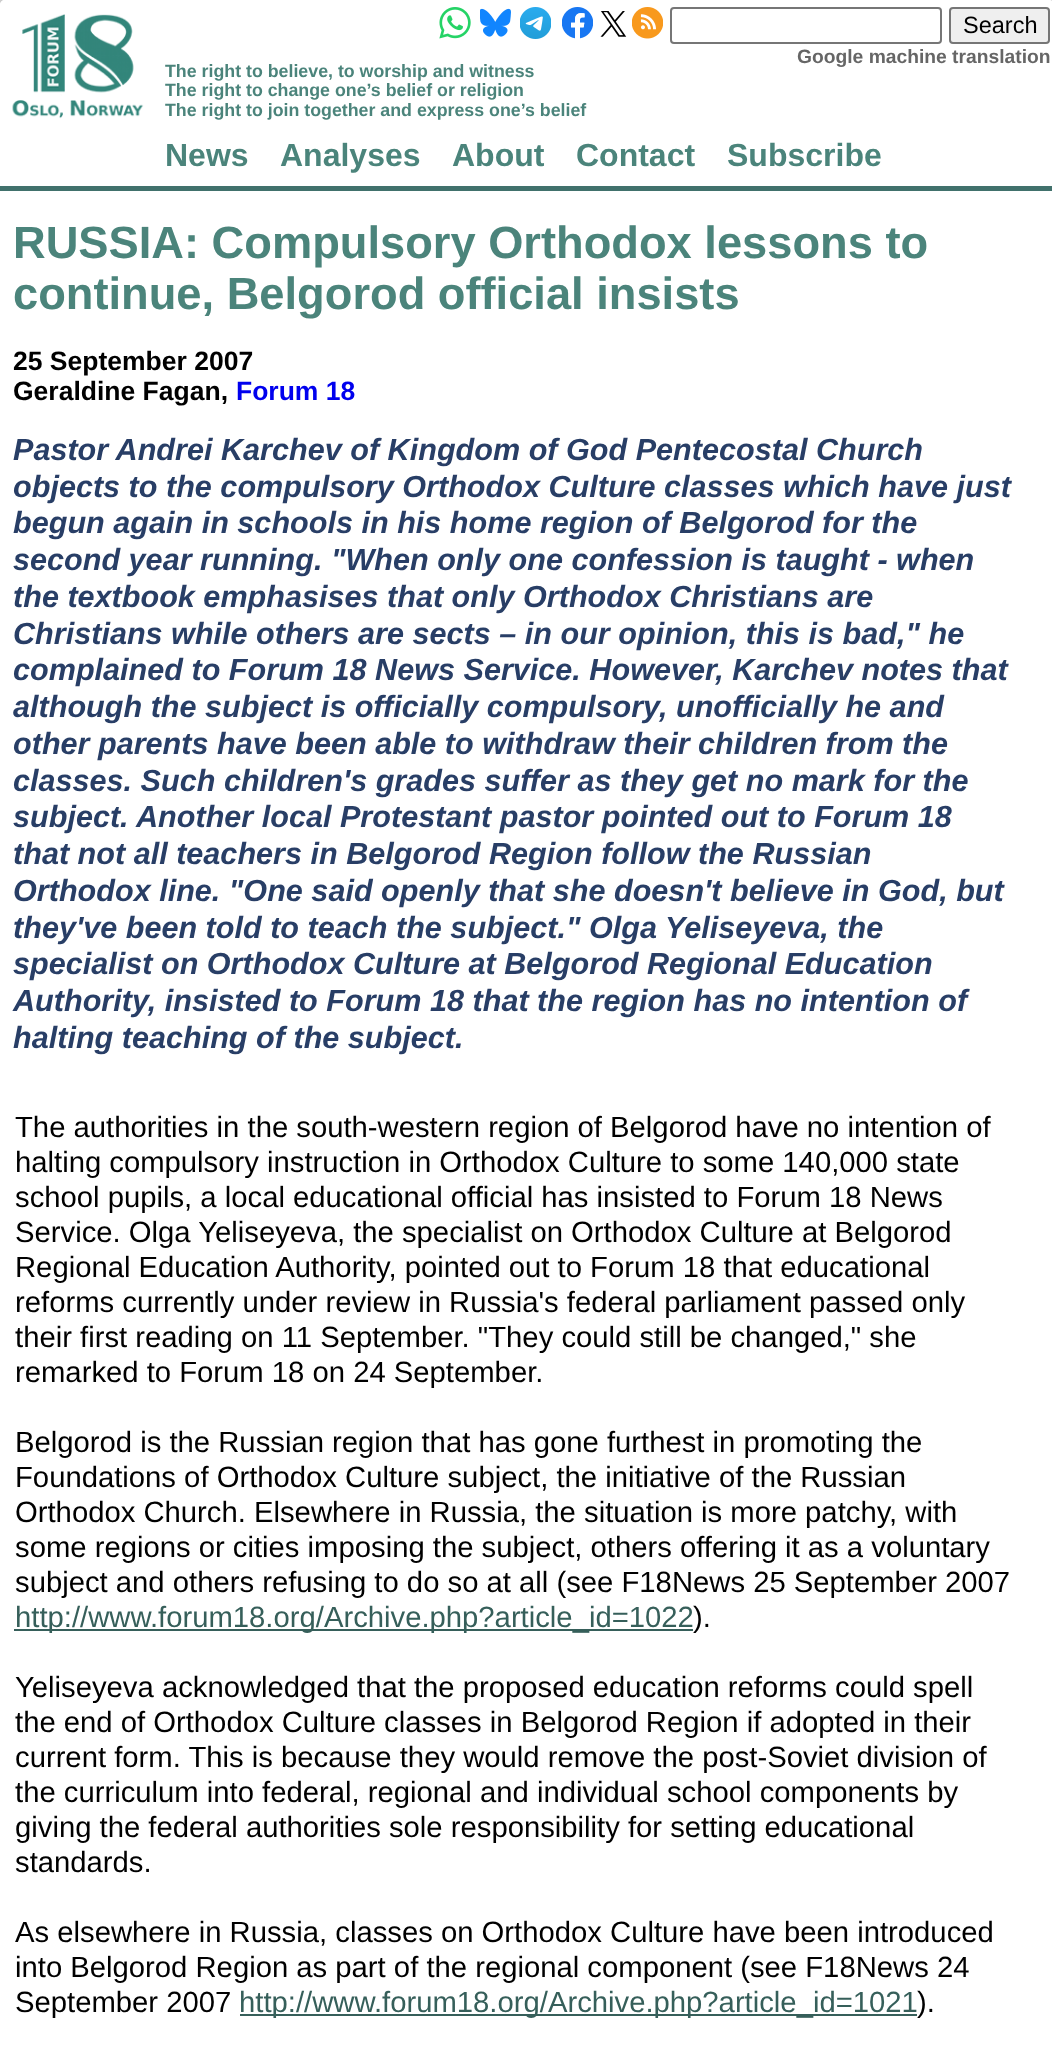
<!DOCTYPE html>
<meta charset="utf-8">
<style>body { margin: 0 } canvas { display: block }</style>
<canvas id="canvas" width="1052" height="2067"></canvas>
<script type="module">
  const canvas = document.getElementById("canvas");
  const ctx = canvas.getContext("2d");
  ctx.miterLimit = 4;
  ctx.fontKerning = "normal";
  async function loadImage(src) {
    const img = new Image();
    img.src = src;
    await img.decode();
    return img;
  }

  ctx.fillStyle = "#d0d0d0";
  ctx.fillRect(0, 0, 1052, 2067);
  ctx.fillStyle = "#757575";
  ctx.filter = "blur(2px)";
  ctx.beginPath();
  ctx.roundRect(2, 2, 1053, 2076, 5);
  ctx.fill();
  ctx.filter = "none";
  ctx.fillStyle = "#ffffff";
  ctx.beginPath();
  ctx.roundRect(0, 0, 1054, 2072, 5);
  ctx.fill();
  ctx.beginPath();
  ctx.moveTo(5, 0);
  ctx.lineTo(1049, 0);
  ctx.bezierCurveTo(1052, 0, 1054, 2, 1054, 5);
  ctx.lineTo(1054, 191);
  ctx.lineTo(0, 191);
  ctx.lineTo(0, 5);
  ctx.bezierCurveTo(0, 2, 2, 0, 5, 0);
  ctx.closePath();
  ctx.fill();
  ctx.fillStyle = "#41716c";
  ctx.fillRect(0, 186, 1052, 5);
  ctx.drawImage(await loadImage("img1.png"), 12, 14, 132, 105);
  ctx.drawImage(await loadImage("img2.png"), 439, 7, 32, 32);
  ctx.drawImage(await loadImage("img3.png"), 480, 8, 31, 29);
  ctx.drawImage(await loadImage("img4.png"), 520, 7, 31, 32);
  ctx.drawImage(await loadImage("img5.png"), 562, 7, 31, 32);
  ctx.drawImage(await loadImage("img6.png"), 600, 11, 27, 26);
  ctx.drawImage(await loadImage("img7.png"), 632, 7, 31, 32);
  ctx.beginPath();
  ctx.roundRect(671, 8, 270, 35, 3);
  ctx.strokeStyle = "#767676";
  ctx.lineWidth = 2;
  ctx.stroke();
  ctx.fillStyle = "#efefef";
  ctx.beginPath();
  ctx.roundRect(950, 8, 99, 35, 3);
  ctx.fill();
  ctx.stroke();
  ctx.font = "23.5px Liberation Sans";
  ctx.fillStyle = "#000000";
  ctx.fillText("Search", 963, 33);
  ctx.font = "bold 19.25px Liberation Sans";
  ctx.fillStyle = "#666666";
  ctx.fillText("Google machine translation", 797, 63);
  ctx.font = "bold 17.8px Liberation Sans";
  ctx.fillStyle = "#4b847b";
  ctx.fillText("The right to believe, to worship and witness", 165, 77);
  ctx.fillText("The right to change one’s belief or religion", 165, 96);
  ctx.fillText("The right to join together and express one’s belief", 165, 116);
  ctx.font = "bold 32px Liberation Sans";
  ctx.fillText("News", 165, 166);
  ctx.fillText("Analyses", 280, 166);
  ctx.fillText("About", 452, 166);
  ctx.fillText("Contact", 576, 166);
  ctx.fillText("Subscribe", 727, 166);
  ctx.font = "bold 45.25px Liberation Sans";
  ctx.fillText("RUSSIA: Compulsory Orthodox lessons to", 13, 258);
  ctx.fillText("continue, Belgorod official insists", 13, 309);
  ctx.font = "bold 26.5px Liberation Sans";
  ctx.fillStyle = "#000000";
  ctx.fillText("25 September 2007", 13, 370);
  ctx.fillText("Geraldine Fagan,", 13, 400);
  ctx.fillStyle = "#0000ee";
  ctx.fillText("Forum 18", 236, 400);
  ctx.font = "italic bold 30.6px Liberation Sans";
  ctx.fillStyle = "#283e66";
  ctx.fillText("Pastor Andrei Karchev of Kingdom of God Pentecostal Church", 13, 460);
  ctx.fillText("objects to the compulsory Orthodox Culture classes which have just", 13, 497);
  ctx.fillText("begun again in schools in his home region of Belgorod for the", 13, 533);
  ctx.fillText("second year running. \"When only one confession is taught - when", 13, 570);
  ctx.fillText("the textbook emphasises that only Orthodox Christians are", 13, 607);
  ctx.fillText("Christians while others are sects – in our opinion, this is bad,\" he", 13, 644);
  ctx.fillText("complained to Forum 18 News Service. However, Karchev notes that", 13, 680);
  ctx.fillText("although the subject is officially compulsory, unofficially he and", 13, 717);
  ctx.fillText("other parents have been able to withdraw their children from the", 13, 754);
  ctx.fillText("classes. Such children's grades suffer as they get no mark for the", 13, 791);
  ctx.fillText("subject. Another local Protestant pastor pointed out to Forum 18", 13, 827);
  ctx.fillText("that not all teachers in Belgorod Region follow the Russian", 13, 864);
  ctx.fillText("Orthodox line. \"One said openly that she doesn't believe in God, but", 13, 901);
  ctx.fillText("they've been told to teach the subject.\" Olga Yeliseyeva, the", 13, 938);
  ctx.fillText("specialist on Orthodox Culture at Belgorod Regional Education", 13, 974);
  ctx.fillText("Authority, insisted to Forum 18 that the region has no intention of", 13, 1011);
  ctx.fillText("halting teaching of the subject.", 13, 1048);
  ctx.font = "29.25px Liberation Sans";
  ctx.fillStyle = "#000000";
  ctx.fillText("The authorities in the south-western region of Belgorod have no intention of", 15, 1137);
  ctx.fillText("halting compulsory instruction in Orthodox Culture to some 140,000 state", 15, 1172);
  ctx.fillText("school pupils, a local educational official has insisted to Forum 18 News", 15, 1207);
  ctx.fillText("Service. Olga Yeliseyeva, the specialist on Orthodox Culture at Belgorod", 15, 1242);
  ctx.fillText("Regional Education Authority, pointed out to Forum 18 that educational", 15, 1277);
  ctx.fillText("reforms currently under review in Russia's federal parliament passed only", 15, 1312);
  ctx.fillText("their first reading on 11 September. \"They could still be changed,\" she", 15, 1347);
  ctx.fillText("remarked to Forum 18 on 24 September.", 15, 1382);
  ctx.fillText("Belgorod is the Russian region that has gone furthest in promoting the", 15, 1452);
  ctx.fillText("Foundations of Orthodox Culture subject, the initiative of the Russian", 15, 1487);
  ctx.fillText("Orthodox Church. Elsewhere in Russia, the situation is more patchy, with", 15, 1522);
  ctx.fillText("some regions or cities imposing the subject, others offering it as a voluntary", 15, 1557);
  ctx.fillText("subject and others refusing to do so at all (see F18News 25 September 2007", 15, 1592);
  ctx.fillStyle = "#365f5a";
  ctx.fillRect(14, 1629, 679, 2);
  ctx.fillText("http://www.forum18.org/Archive.php?article_id=1022", 15, 1627);
  ctx.fillStyle = "#000000";
  ctx.fillText(").", 693, 1627);
  ctx.fillText("Yeliseyeva acknowledged that the proposed education reforms could spell", 15, 1697);
  ctx.fillText("the end of Orthodox Culture classes in Belgorod Region if adopted in their", 15, 1732);
  ctx.fillText("current form. This is because they would remove the post-Soviet division of", 15, 1767);
  ctx.fillText("the curriculum into federal, regional and individual school components by", 15, 1802);
  ctx.fillText("giving the federal authorities sole responsibility for setting educational", 15, 1837);
  ctx.fillText("standards.", 15, 1872);
  ctx.fillText("As elsewhere in Russia, classes on Orthodox Culture have been introduced", 15, 1942);
  ctx.fillText("into Belgorod Region as part of the regional component (see F18News 24", 15, 1977);
  ctx.fillText("September 2007", 15, 2012);
  ctx.fillStyle = "#365f5a";
  ctx.fillRect(240, 2014, 677, 2);
  ctx.fillText("http://www.forum18.org/Archive.php?article_id=1021", 239, 2012);
  ctx.fillStyle = "#000000";
  ctx.fillText(").", 917, 2012);
</script>
